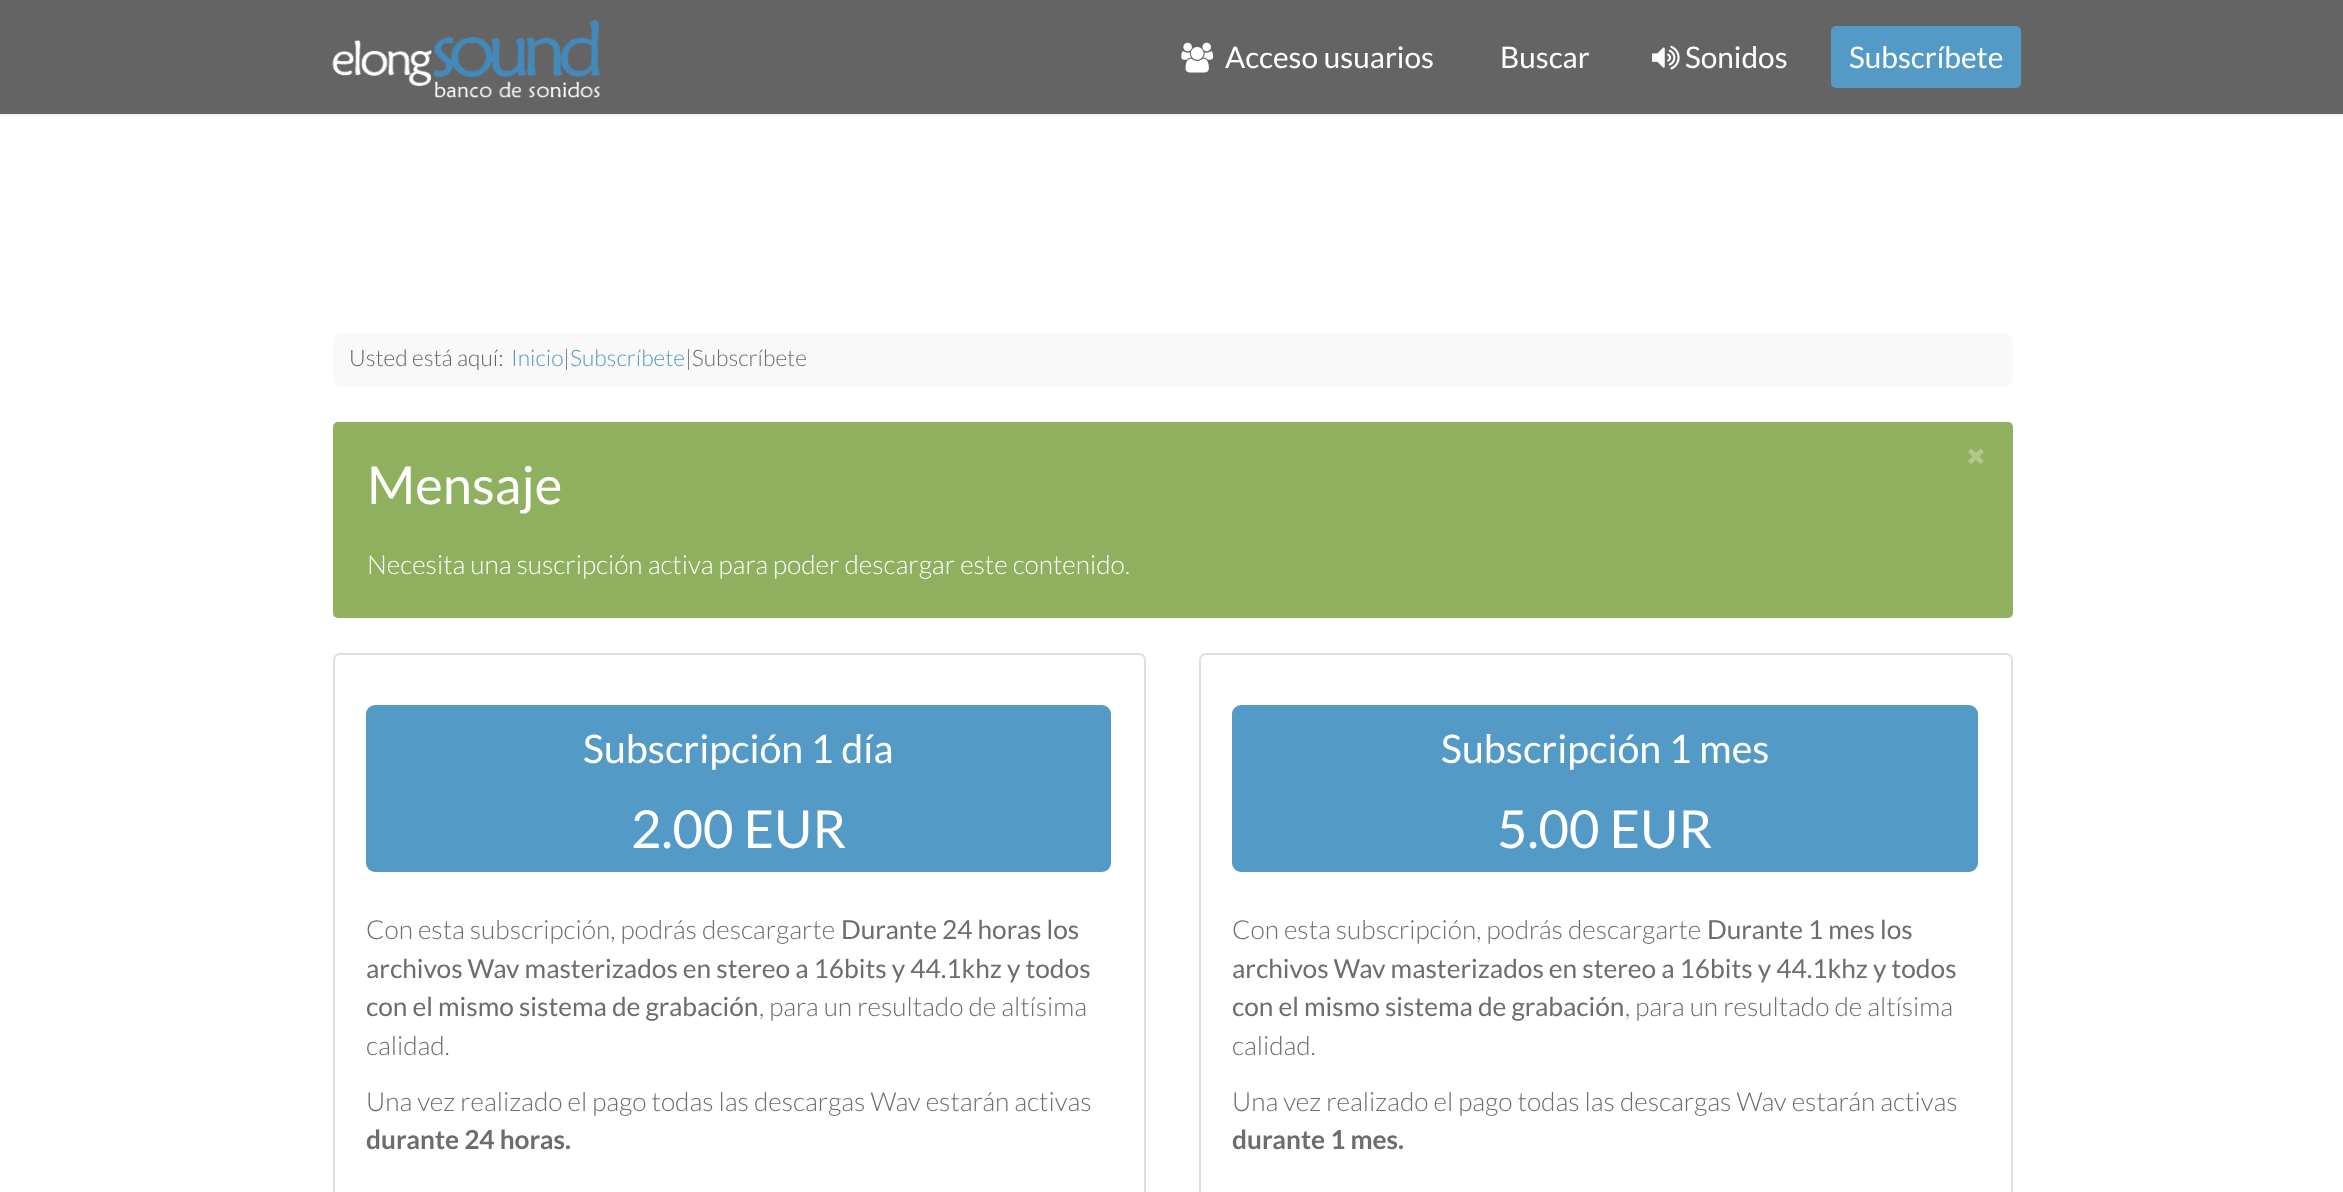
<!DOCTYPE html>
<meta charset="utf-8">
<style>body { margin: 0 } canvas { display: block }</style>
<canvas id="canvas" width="2343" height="1192"></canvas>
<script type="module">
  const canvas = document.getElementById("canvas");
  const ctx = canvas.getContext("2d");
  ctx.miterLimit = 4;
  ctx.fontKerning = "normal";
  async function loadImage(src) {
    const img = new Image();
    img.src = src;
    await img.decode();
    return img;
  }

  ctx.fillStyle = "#ffffff";
  ctx.fillRect(0, 0, 2343, 1192);
  ctx.fillStyle = "#f2f2f2";
  ctx.fillRect(0, 114, 2343, 2);
  ctx.fillStyle = "#646464";
  ctx.fillRect(0, 0, 2343, 114);
  ctx.drawImage(await loadImage("img1.png"), 332, 20, 268, 78);
  ctx.drawImage(await loadImage("img2.png"), 1181, 42, 33, 31);
  ctx.font = "29.75px Lato";
  ctx.fillStyle = "#ffffff";
  ctx.fillText("Acceso usuarios", 1225, 68);
  ctx.fillText("Buscar", 1500, 68);
  ctx.drawImage(await loadImage("img3.png"), 1652, 45, 28, 25);
  ctx.fillText("Sonidos", 1685, 68);
  ctx.fillStyle = "#549ac6";
  ctx.beginPath();
  ctx.roundRect(1831, 26, 190, 62, 5);
  ctx.fill();
  ctx.fillStyle = "#ffffff";
  ctx.fillText("Subscríbete", 1849, 68);
  ctx.fillStyle = "#f9f9f9";
  ctx.beginPath();
  ctx.roundRect(333, 333, 1680, 54, 9);
  ctx.fill();
  ctx.font = "300 22.75px Lato";
  ctx.fillStyle = "#646464";
  ctx.fillText("Usted está aquí:", 349, 366);
  ctx.fillStyle = "#549ac6";
  ctx.fillText("Inicio", 511, 366);
  ctx.fillStyle = "#6f6d6b";
  ctx.fillText("|", 563, 366);
  ctx.fillStyle = "#549ac6";
  ctx.fillText("Subscríbete", 570, 366);
  ctx.fillStyle = "#6f6d6b";
  ctx.fillText("|Subscríbete", 685, 366);
  ctx.fillStyle = "#8fb05f";
  ctx.beginPath();
  ctx.roundRect(333, 422, 1680, 196, 5);
  ctx.fill();
  ctx.drawImage(await loadImage("img4.png"), 1968, 449, 16, 15);
  ctx.font = "52.5px Lato";
  ctx.fillStyle = "#ffffff";
  ctx.fillText("Mensaje", 367, 504);
  ctx.font = "300 26.25px Lato";
  ctx.fillText("Necesita una suscripción activa para poder descargar este contenido.", 367, 574);
  ctx.beginPath();
  ctx.roundRect(334, 654, 811, 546, 6);
  ctx.strokeStyle = "#dfdfdf";
  ctx.lineWidth = 2;
  ctx.stroke();
  ctx.fillStyle = "#549ac6";
  ctx.beginPath();
  ctx.roundRect(366, 705, 745, 88, [9, 9, 0, 0]);
  ctx.fill();
  ctx.beginPath();
  ctx.roundRect(366, 767, 745, 105, [0, 0, 9, 9]);
  ctx.fill();
  ctx.font = "39.4px Lato";
  ctx.fillStyle = "#ffffff";
  ctx.fillText("Subscripción 1 día", 583, 763);
  ctx.font = "52.5px Lato";
  ctx.fillText("2.00 EUR", 631, 848);
  ctx.font = "300 26.25px Lato";
  ctx.fillStyle = "#6f6d6b";
  ctx.fillText("Con esta subscripción, podrás descargarte", 366, 939);
  ctx.font = "26.25px Lato";
  ctx.fillText("Durante 24 horas los", 841, 939);
  ctx.fillText("archivos Wav masterizados en stereo a 16bits y 44.1khz y todos", 366, 978);
  ctx.fillText("con el mismo sistema de grabación", 366, 1016);
  ctx.font = "300 26.25px Lato";
  ctx.fillText(", para un resultado de altísima", 759, 1016);
  ctx.fillText("calidad.", 366, 1055);
  ctx.fillText("Una vez realizado el pago todas las descargas Wav estarán activas", 366, 1111);
  ctx.font = "bold 26.25px Lato";
  ctx.fillText("durante 24 horas.", 366, 1149);
  ctx.beginPath();
  ctx.roundRect(1200, 654, 812, 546, 6);
  ctx.stroke();
  ctx.fillStyle = "#549ac6";
  ctx.beginPath();
  ctx.roundRect(1232, 705, 746, 88, [9, 9, 0, 0]);
  ctx.fill();
  ctx.beginPath();
  ctx.roundRect(1232, 767, 746, 105, [0, 0, 9, 9]);
  ctx.fill();
  ctx.font = "39.4px Lato";
  ctx.fillStyle = "#ffffff";
  ctx.fillText("Subscripción 1 mes", 1441, 763);
  ctx.font = "52.5px Lato";
  ctx.fillText("5.00 EUR", 1497, 848);
  ctx.font = "300 26.25px Lato";
  ctx.fillStyle = "#6f6d6b";
  ctx.fillText("Con esta subscripción, podrás descargarte", 1232, 939);
  ctx.font = "26.25px Lato";
  ctx.fillText("Durante 1 mes los", 1707, 939);
  ctx.fillText("archivos Wav masterizados en stereo a 16bits y 44.1khz y todos", 1232, 978);
  ctx.fillText("con el mismo sistema de grabación", 1232, 1016);
  ctx.font = "300 26.25px Lato";
  ctx.fillText(", para un resultado de altísima", 1625, 1016);
  ctx.fillText("calidad.", 1232, 1055);
  ctx.fillText("Una vez realizado el pago todas las descargas Wav estarán activas", 1232, 1111);
  ctx.font = "bold 26.25px Lato";
  ctx.fillText("durante 1 mes.", 1232, 1149);
</script>
